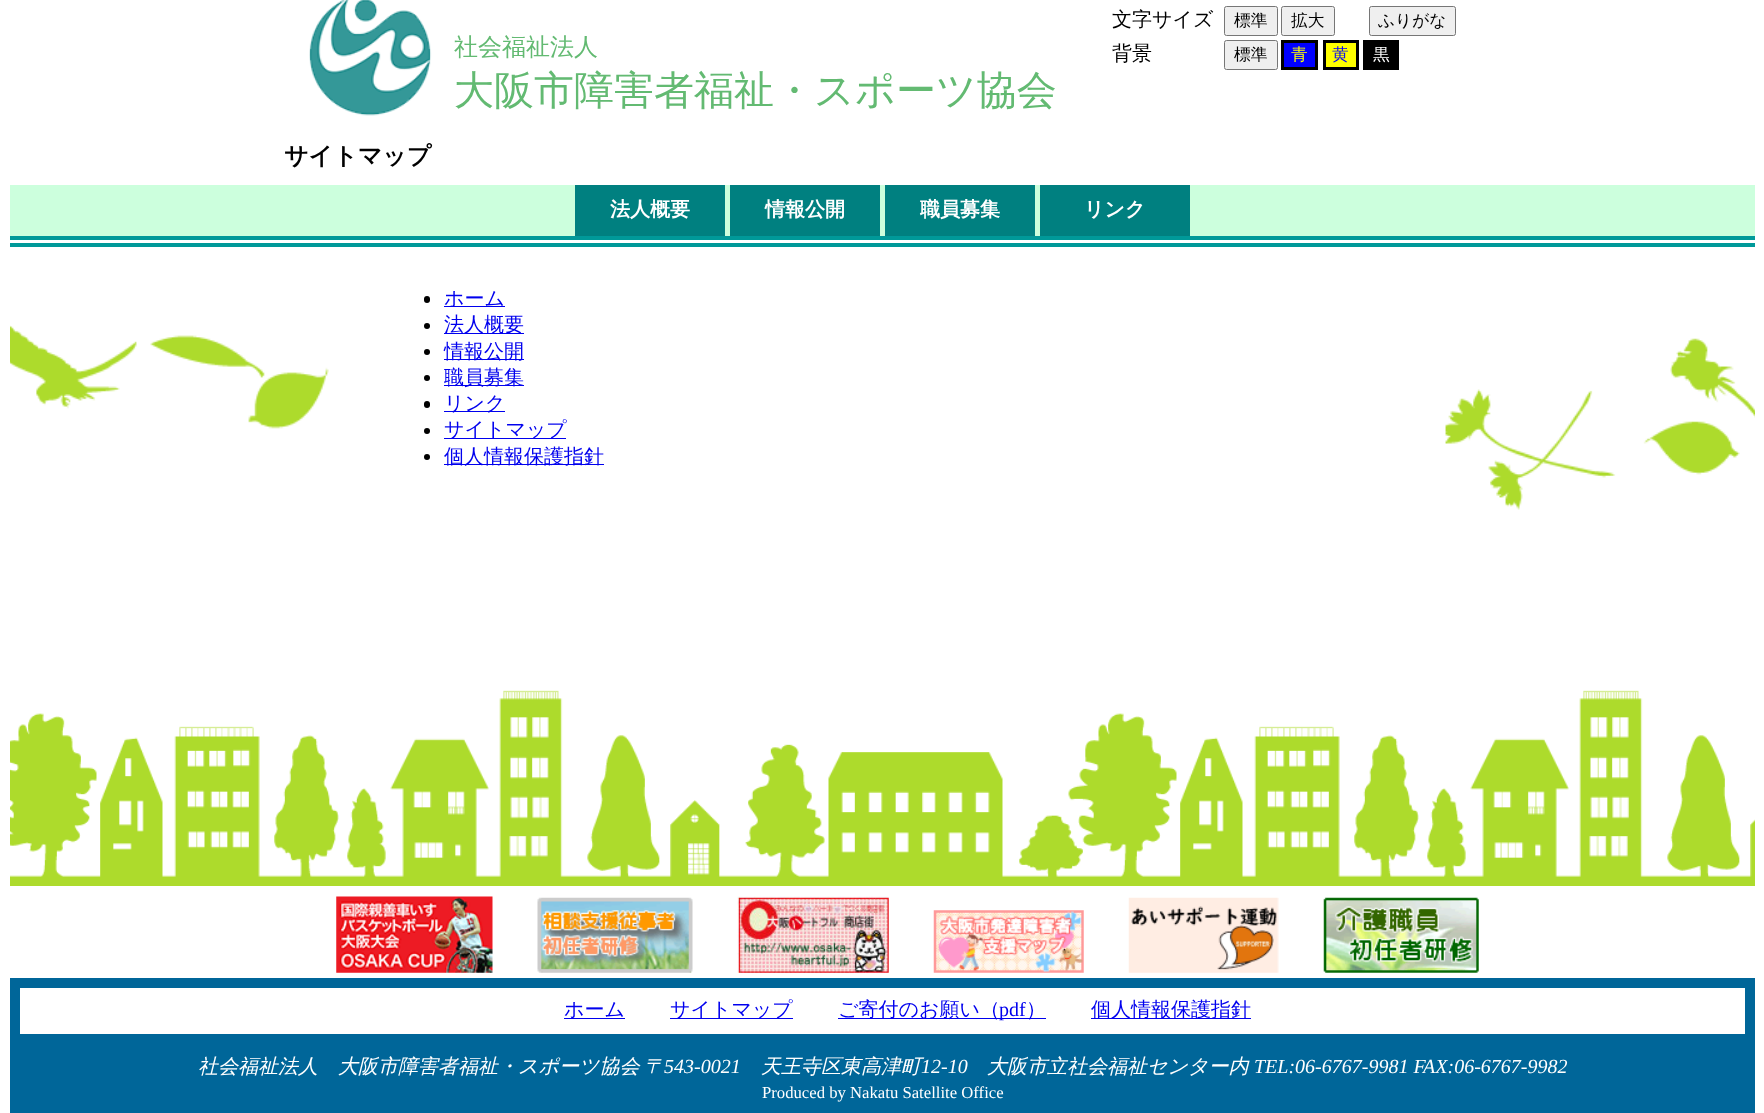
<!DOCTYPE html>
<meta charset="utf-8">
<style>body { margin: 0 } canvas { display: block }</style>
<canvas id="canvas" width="1764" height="1113"></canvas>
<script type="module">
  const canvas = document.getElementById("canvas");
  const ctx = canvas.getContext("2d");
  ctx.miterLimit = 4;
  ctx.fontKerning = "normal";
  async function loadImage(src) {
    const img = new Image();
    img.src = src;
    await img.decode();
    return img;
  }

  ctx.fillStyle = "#ffffff";
  ctx.fillRect(0, 0, 1764, 1113);
  ctx.fillStyle = "#009999";
  ctx.fillRect(10, 236, 1745, 4);
  ctx.fillRect(10, 243, 1745, 4);
  ctx.drawImage(await loadImage("img1.png"), 309, 0, 123, 116);
  ctx.font = "500 24px WenQuanYi Zen Hei";
  ctx.fillStyle = "#63ba72";
  ctx.fillText("社会福祉法人", 454, 55);
  ctx.font = "500 40px WenQuanYi Zen Hei";
  ctx.fillText("大阪市障害者福祉・スポーツ協会", 454, 104);
  ctx.font = "500 20px WenQuanYi Zen Hei";
  ctx.fillStyle = "#000000";
  ctx.fillText("文字サイズ", 1112, 26);
  ctx.fillStyle = "#efefef";
  ctx.beginPath();
  ctx.roundRect(1224.5, 6.5, 53, 29, 2);
  ctx.fill();
  ctx.strokeStyle = "#767676";
  ctx.stroke();
  ctx.font = "500 16.7px WenQuanYi Zen Hei";
  ctx.fillStyle = "#000000";
  ctx.fillText("標準", 1234, 26);
  ctx.fillStyle = "#efefef";
  ctx.beginPath();
  ctx.roundRect(1281.5, 6.5, 53, 29, 2);
  ctx.fill();
  ctx.stroke();
  ctx.fillStyle = "#000000";
  ctx.fillText("拡大", 1291, 26);
  ctx.fillStyle = "#efefef";
  ctx.beginPath();
  ctx.roundRect(1369.5, 6.5, 86, 29, 2);
  ctx.fill();
  ctx.stroke();
  ctx.fillStyle = "#000000";
  ctx.fillText("ふりがな", 1378, 26);
  ctx.font = "500 20px WenQuanYi Zen Hei";
  ctx.fillText("背景", 1112, 60);
  ctx.fillStyle = "#efefef";
  ctx.beginPath();
  ctx.roundRect(1224.5, 40.5, 53, 29, 2);
  ctx.fill();
  ctx.stroke();
  ctx.font = "500 16.7px WenQuanYi Zen Hei";
  ctx.fillStyle = "#000000";
  ctx.fillText("標準", 1234, 60);
  ctx.fillStyle = "#0000ff";
  ctx.beginPath();
  ctx.rect(1282.5, 41.5, 34, 27);
  ctx.fill();
  ctx.strokeStyle = "#000000";
  ctx.lineWidth = 3;
  ctx.stroke();
  ctx.fillStyle = "#ffff00";
  ctx.fillText("青", 1291, 60);
  ctx.beginPath();
  ctx.rect(1324.5, 41.5, 33, 27);
  ctx.fill();
  ctx.stroke();
  ctx.fillStyle = "#0000ff";
  ctx.fillText("黄", 1332, 60);
  ctx.fillStyle = "#000000";
  ctx.fillRect(1363, 40, 36, 30);
  ctx.fillStyle = "#ffffff";
  ctx.fillText("黒", 1373, 60);
  ctx.font = "bold 24px WenQuanYi Zen Hei";
  ctx.fillStyle = "#000000";
  ctx.fillText("サイトマップ", 284, 164);
  ctx.fillStyle = "#ccffdd";
  ctx.fillRect(10, 185, 1745, 51);
  ctx.fillStyle = "#008080";
  ctx.fillRect(575, 185, 150, 51);
  ctx.font = "bold 20px WenQuanYi Zen Hei";
  ctx.fillStyle = "#ffffff";
  ctx.fillText("法人概要", 610, 216);
  ctx.fillStyle = "#008080";
  ctx.fillRect(730, 185, 150, 51);
  ctx.fillStyle = "#ffffff";
  ctx.fillText("情報公開", 765, 216);
  ctx.fillStyle = "#008080";
  ctx.fillRect(885, 185, 150, 51);
  ctx.fillStyle = "#ffffff";
  ctx.fillText("職員募集", 920, 216);
  ctx.fillStyle = "#008080";
  ctx.fillRect(1040, 185, 150, 51);
  ctx.fillStyle = "#ffffff";
  ctx.fillText("リンク", 1084, 216);
  ctx.drawImage(await loadImage("img2.png"), 10, 325, 1745, 561);
  ctx.fillStyle = "#000000";
  ctx.beginPath();
  ctx.roundRect(424, 296, 6, 7, 3);
  ctx.fill();
  ctx.fillStyle = "#0000ee";
  ctx.fillRect(444, 306, 61, 1);
  ctx.font = "500 20px WenQuanYi Zen Hei";
  ctx.fillText("ホーム", 444, 305);
  ctx.fillStyle = "#000000";
  ctx.beginPath();
  ctx.arc(427, 326, 3, 0, Math.PI * 2);
  ctx.fill();
  ctx.fillStyle = "#0000ee";
  ctx.fillRect(444, 333, 80, 1);
  ctx.fillText("法人概要", 444, 331);
  ctx.fillStyle = "#000000";
  ctx.beginPath();
  ctx.arc(427, 352, 3, 0, Math.PI * 2);
  ctx.fill();
  ctx.fillStyle = "#0000ee";
  ctx.fillRect(444, 359, 80, 1);
  ctx.fillText("情報公開", 444, 358);
  ctx.fillStyle = "#000000";
  ctx.beginPath();
  ctx.arc(427, 378, 3, 0, Math.PI * 2);
  ctx.fill();
  ctx.fillStyle = "#0000ee";
  ctx.fillRect(444, 385, 80, 1);
  ctx.fillText("職員募集", 444, 384);
  ctx.fillStyle = "#000000";
  ctx.beginPath();
  ctx.roundRect(424, 401, 6, 7, 3);
  ctx.fill();
  ctx.fillStyle = "#0000ee";
  ctx.fillRect(444, 411, 61, 1);
  ctx.fillText("リンク", 444, 410);
  ctx.fillStyle = "#000000";
  ctx.beginPath();
  ctx.arc(427, 431, 3, 0, Math.PI * 2);
  ctx.fill();
  ctx.fillStyle = "#0000ee";
  ctx.fillRect(444, 438, 122, 1);
  ctx.fillText("サイトマップ", 444, 436);
  ctx.fillStyle = "#000000";
  ctx.beginPath();
  ctx.arc(427, 457, 3, 0, Math.PI * 2);
  ctx.fill();
  ctx.fillStyle = "#0000ee";
  ctx.fillRect(444, 464, 160, 1);
  ctx.fillText("個人情報保護指針", 444, 463);
  ctx.drawImage(await loadImage("img3.png"), 336, 896, 157, 77);
  ctx.drawImage(await loadImage("img4.png"), 537, 897, 156, 76);
  ctx.drawImage(await loadImage("img5.png"), 737, 896, 152, 77);
  ctx.drawImage(await loadImage("img6.png"), 933, 910, 151, 63);
  ctx.drawImage(await loadImage("img7.png"), 1128, 897, 151, 76);
  ctx.drawImage(await loadImage("img8.png"), 1323, 897, 156, 76);
  ctx.strokeStyle = "#006699";
  ctx.lineWidth = 10;
  ctx.strokeRect(15, 983, 1735, 56);
  ctx.fillRect(564, 1018, 61, 1);
  ctx.fillText("ホーム", 564, 1016);
  ctx.fillRect(670, 1018, 123, 1);
  ctx.fillText("サイトマップ", 670, 1016);
  ctx.fillRect(838, 1018, 208, 1);
  ctx.fillText("ご寄付のお願い（", 838, 1016);
  ctx.font = "20px Liberation Serif";
  ctx.fillText("pdf", 999, 1016);
  ctx.font = "500 20px WenQuanYi Zen Hei";
  ctx.fillText("）", 1026, 1016);
  ctx.fillRect(1091, 1018, 160, 1);
  ctx.fillText("個人情報保護指針", 1091, 1016);
  ctx.fillStyle = "#006699";
  ctx.fillRect(10, 1044, 1745, 69);
  ctx.font = "italic 500 20px WenQuanYi Zen Hei";
  ctx.fillStyle = "#ffffff";
  ctx.fillText("社会福祉法人", 198, 1073);
  ctx.fillText("大阪市障害者福祉・スポーツ協会", 338, 1073);
  ctx.fillText("〒", 644, 1073);
  ctx.font = "italic 20px Liberation Serif";
  ctx.fillText("543-0021", 664, 1073);
  ctx.font = "italic 500 20px WenQuanYi Zen Hei";
  ctx.fillText("天王寺区東高津町", 761, 1073);
  ctx.font = "italic 20px Liberation Serif";
  ctx.fillText("12-10", 921, 1073);
  ctx.font = "italic 500 20px WenQuanYi Zen Hei";
  ctx.fillText("大阪市立社会福祉センター内", 987, 1073);
  ctx.font = "italic 20px Liberation Serif";
  ctx.fillText("TEL:06-6767-9981 FAX:06-6767-9982", 1254, 1073);
  ctx.font = "16.7px Liberation Serif";
  ctx.fillText("Produced by Nakatu Satellite Office", 762, 1098);
</script>
